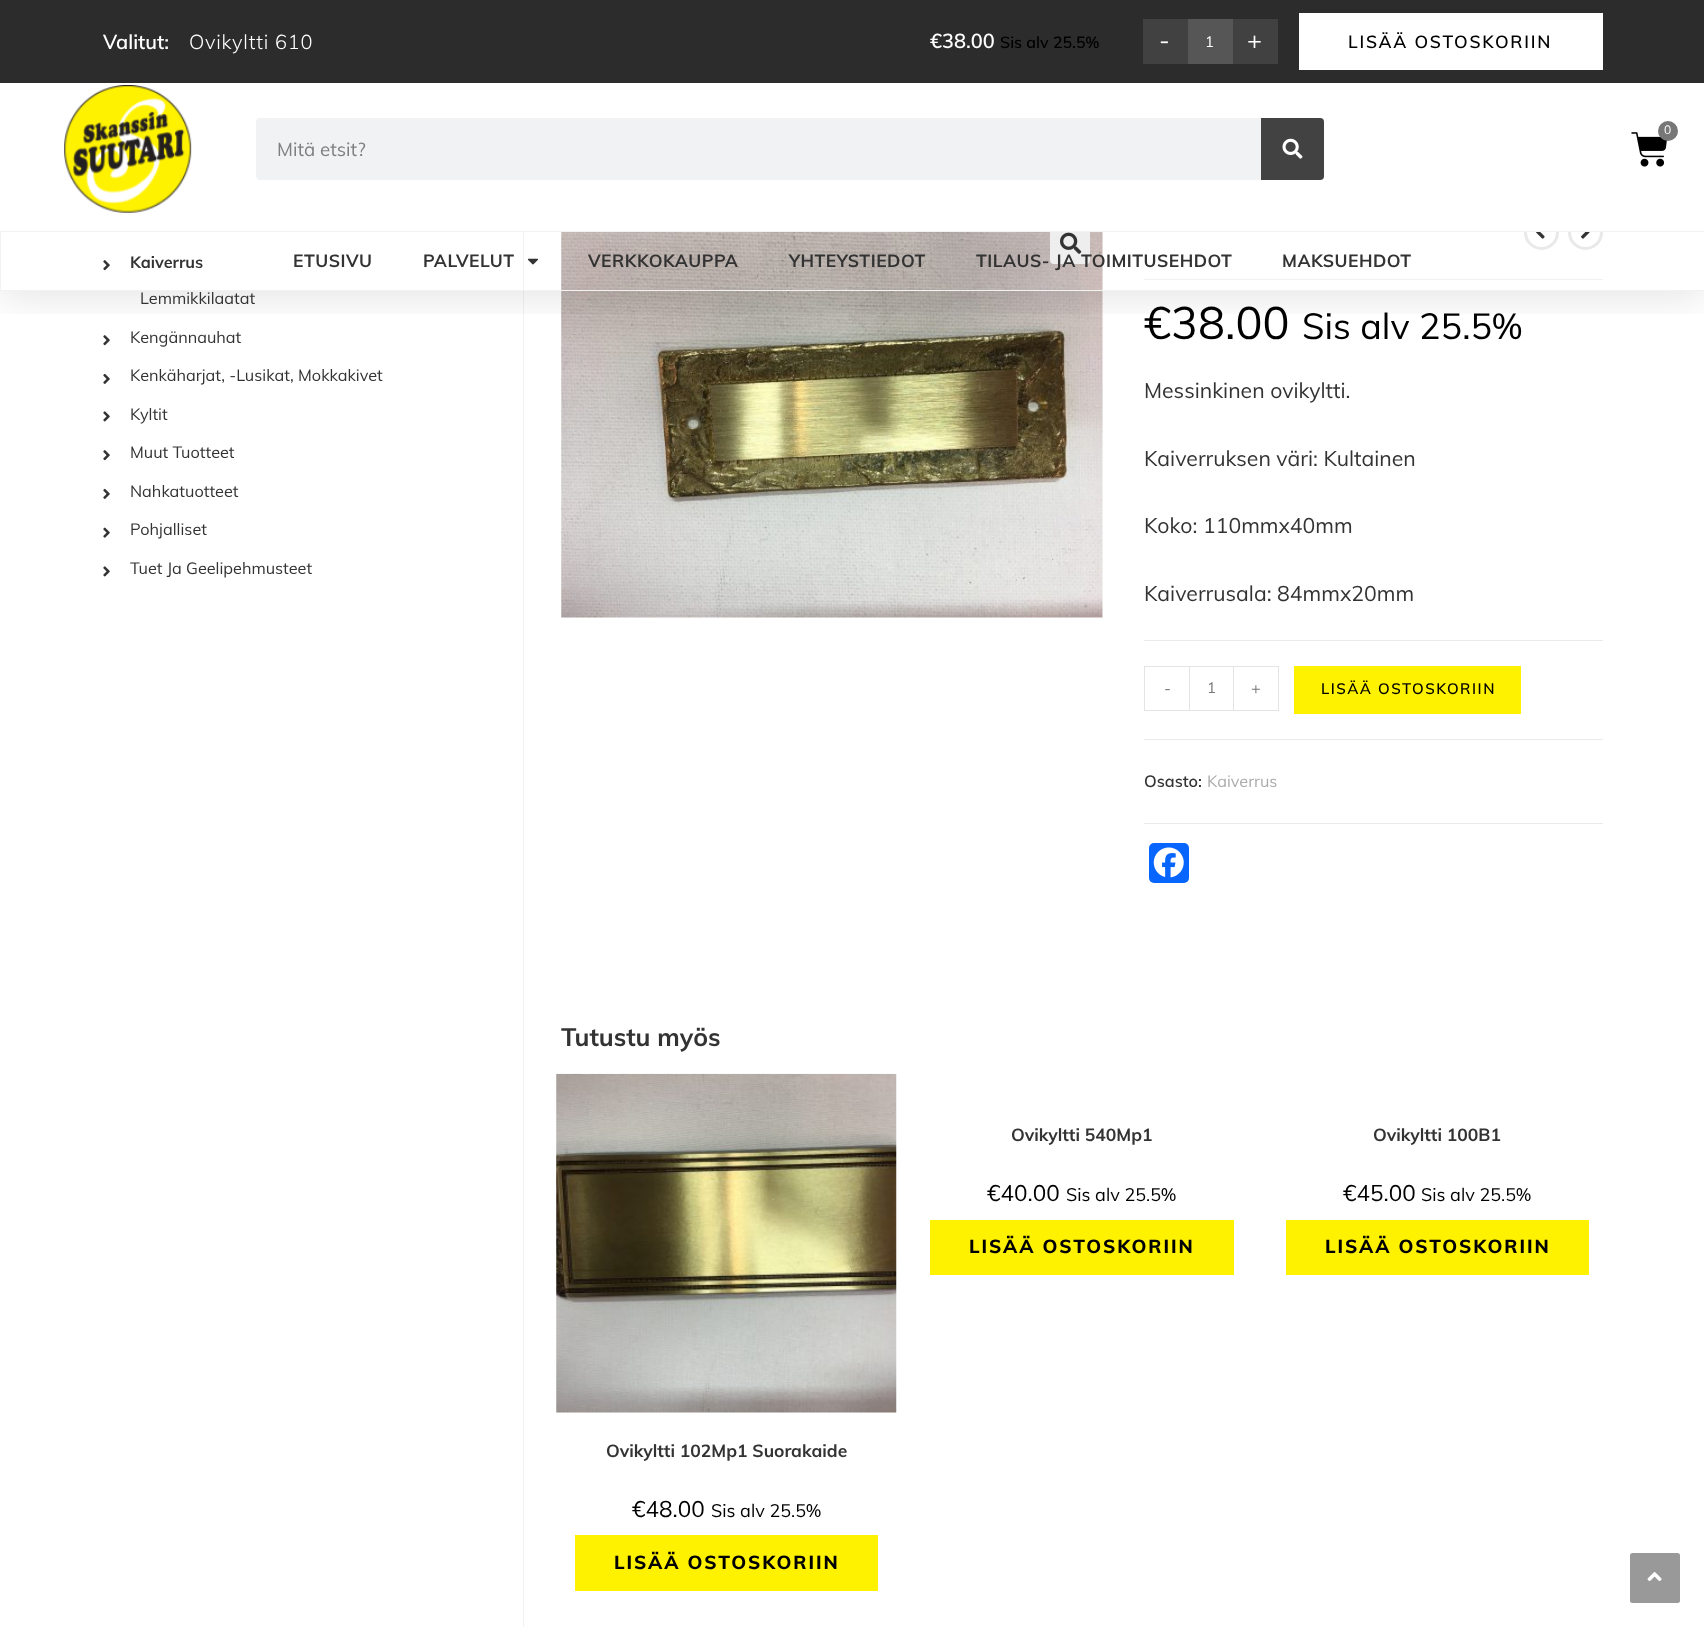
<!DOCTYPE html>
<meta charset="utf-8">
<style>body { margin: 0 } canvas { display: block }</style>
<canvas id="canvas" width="1704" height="1627"></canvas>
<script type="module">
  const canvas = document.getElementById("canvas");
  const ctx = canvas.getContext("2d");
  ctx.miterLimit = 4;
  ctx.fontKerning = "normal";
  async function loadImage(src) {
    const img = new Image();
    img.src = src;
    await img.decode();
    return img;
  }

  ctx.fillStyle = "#ffffff";
  ctx.fillRect(0, 0, 1704, 1627);
  ctx.drawImage(await loadImage("img5.png"), 103, 260, 7, 11);
  ctx.drawImage(await loadImage("img5.png"), 103, 335, 7, 11);
  ctx.fillStyle = "#f1f1f1";
  ctx.fillRect(523, 232, 1, 1395);
  ctx.drawImage(await loadImage("img10.png"), 561, 232, 542, 386);
  ctx.fillStyle = "#eeeeee";
  ctx.beginPath();
  ctx.roundRect(1050, 224, 40, 40, 4);
  ctx.fill();
  ctx.drawImage(await loadImage("img9.png"), 1060, 232, 22, 22);
  ctx.fillStyle = "#f1f1f1";
  ctx.fillRect(1144, 279, 459, 1);
  ctx.beginPath();
  ctx.arc(1541.5, 232.5, 16, 0, Math.PI * 2);
  ctx.strokeStyle = "#e9e9e9";
  ctx.lineWidth = 3;
  ctx.stroke();
  ctx.drawImage(await loadImage("img12.png"), 1536, 232, 9, 7);
  ctx.beginPath();
  ctx.arc(1585.5, 232.5, 16, 0, Math.PI * 2);
  ctx.stroke();
  ctx.drawImage(await loadImage("img13.png"), 1581, 232, 9, 7);
  ctx.save();
  ctx.beginPath();
  ctx.rect(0, 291, 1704, 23);
  ctx.clip();
  ctx.fillStyle = "rgba(0, 0, 0, 0.1)";
  ctx.filter = "blur(19px)";
  ctx.beginPath();
  ctx.rect(0, 6, 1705, 292);
  ctx.fill();
  ctx.filter = "none";
  ctx.restore();
  ctx.fillStyle = "#2c2c2c";
  ctx.fillRect(0, 0, 1704, 83);
  ctx.font = "600 20px Muli";
  ctx.fillStyle = "#ffffff";
  ctx.fillText("Valitut:", 103, 49);
  ctx.letterSpacing = "0.75px";
  ctx.font = "300 20px Muli";
  ctx.fillText("Ovikyltti 610", 189, 49);
  ctx.letterSpacing = "0px";
  ctx.font = "600 20px Muli";
  ctx.fillText("€38.00", 930, 48);
  ctx.font = "600 16px Muli";
  ctx.fillStyle = "#000000";
  ctx.fillText("Sis alv 25.5%", 1000, 48);
  ctx.fillStyle = "#414141";
  ctx.fillRect(1143, 19, 45, 45);
  ctx.font = "25px Muli";
  ctx.fillStyle = "#ffffff";
  ctx.fillText("-", 1159, 49);
  ctx.fillStyle = "#565656";
  ctx.fillRect(1188, 19, 45, 45);
  ctx.font = "15px Muli";
  ctx.fillStyle = "#ffffff";
  ctx.fillText("1", 1205, 47);
  ctx.fillStyle = "#414141";
  ctx.fillRect(1233, 19, 45, 45);
  ctx.font = "25px Muli";
  ctx.fillStyle = "#ffffff";
  ctx.fillText("+", 1247, 49);
  ctx.fillRect(1299, 13, 304, 57);
  ctx.letterSpacing = "1.75px";
  ctx.font = "600 17.5px Muli";
  ctx.fillStyle = "#000000";
  ctx.fillText("LISÄÄ OSTOSKORIIN", 1348, 48);
  ctx.fillStyle = "#ffffff";
  ctx.fillRect(1050, 215, 553, 16);
  ctx.drawImage(await loadImage("img1.png"), 64, 85, 128, 128);
  ctx.drawImage(await loadImage("img2.png"), 1631, 132, 36, 35);
  ctx.fillStyle = "#777777";
  ctx.beginPath();
  ctx.arc(1668, 131, 10, 0, Math.PI * 2);
  ctx.fill();
  ctx.letterSpacing = "0px";
  ctx.font = "12px Muli";
  ctx.fillStyle = "#ffffff";
  ctx.fillText("0", 1664, 134);
  ctx.fillStyle = "#f1f2f3";
  ctx.beginPath();
  ctx.roundRect(256, 118, 1068, 62, 4);
  ctx.fill();
  ctx.font = "18.75px Muli";
  ctx.fillStyle = "#7f7f80";
  ctx.fillText("Mitä etsit?", 277, 156);
  ctx.fillStyle = "#424242";
  ctx.beginPath();
  ctx.roundRect(1261, 118, 63, 62, [0, 4, 4, 0]);
  ctx.fill();
  ctx.drawImage(await loadImage("img3.png"), 1282, 138, 21, 21);
  ctx.strokeStyle = "#f2f2f2";
  ctx.lineWidth = 1;
  ctx.strokeRect(0.5, 231.5, 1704, 59);
  ctx.letterSpacing = "0.5px";
  ctx.font = "bold 17.5px Muli";
  ctx.fillStyle = "#333333";
  ctx.fillText("ETUSIVU", 293, 267);
  ctx.fillText("PALVELUT", 423, 267);
  ctx.drawImage(await loadImage("img4.png"), 527, 258, 11, 7);
  ctx.fillText("VERKKOKAUPPA", 588, 267);
  ctx.fillText("YHTEYSTIEDOT", 789, 267);
  ctx.fillText("TILAUS- JA TOIMITUSEHDOT", 976, 267);
  ctx.fillText("MAKSUEHDOT", 1282, 267);
  ctx.letterSpacing = "0px";
  ctx.font = "bold 16.25px Muli";
  ctx.fillText("Kaiverrus", 130, 268);
  ctx.font = "16.25px Muli";
  ctx.fillText("Lemmikkilaatat", 140, 304);
  ctx.fillText("Kengännauhat", 130, 343);
  ctx.drawImage(await loadImage("img6.png"), 103, 373, 7, 11);
  ctx.fillText("Kenkäharjat, -Lusikat, Mokkakivet", 130, 381);
  ctx.drawImage(await loadImage("img7.png"), 103, 411, 7, 11);
  ctx.fillText("Kyltit", 130, 420);
  ctx.drawImage(await loadImage("img5.png"), 103, 450, 7, 11);
  ctx.fillText("Muut Tuotteet", 130, 458);
  ctx.drawImage(await loadImage("img6.png"), 103, 488, 7, 11);
  ctx.fillText("Nahkatuotteet", 130, 497);
  ctx.drawImage(await loadImage("img8.png"), 103, 527, 7, 11);
  ctx.fillText("Pohjalliset", 130, 535);
  ctx.drawImage(await loadImage("img7.png"), 103, 566, 7, 11);
  ctx.fillText("Tuet Ja Geelipehmusteet", 130, 574);
  ctx.font = "45px Muli";
  ctx.fillStyle = "#000000";
  ctx.fillText("€38.00", 1144, 339);
  ctx.font = "36px Muli";
  ctx.fillText("Sis alv 25.5%", 1302, 339);
  ctx.font = "21.25px Muli";
  ctx.fillStyle = "#333333";
  ctx.fillText("Messinkinen ovikyltti.", 1144, 398);
  ctx.fillText("Kaiverruksen väri: Kultainen", 1144, 466);
  ctx.fillText("Koko: 110mmx40mm", 1144, 533);
  ctx.fillText("Kaiverrusala: 84mmx20mm", 1144, 601);
  ctx.fillStyle = "#eaeaea";
  ctx.fillRect(1144, 640, 459, 1);
  ctx.fillRect(1144, 739, 459, 1);
  ctx.fillStyle = "#e4e4e4";
  ctx.fillRect(1144, 666, 45, 1);
  ctx.fillRect(1144, 710, 45, 1);
  ctx.fillRect(1144, 666, 1, 45);
  ctx.font = "16.25px Muli";
  ctx.fillStyle = "#777777";
  ctx.fillText("-", 1164, 694);
  ctx.strokeStyle = "#e4e4e4";
  ctx.strokeRect(1189.5, 666.5, 44, 44);
  ctx.font = "15px Muli";
  ctx.fillText("1", 1207, 693);
  ctx.fillStyle = "#e4e4e4";
  ctx.fillRect(1234, 666, 45, 1);
  ctx.fillRect(1278, 666, 1, 45);
  ctx.fillRect(1234, 710, 45, 1);
  ctx.font = "16.25px Muli";
  ctx.fillStyle = "#777777";
  ctx.fillText("+", 1251, 694);
  ctx.fillStyle = "#fff200";
  ctx.fillRect(1294, 666, 227, 48);
  ctx.letterSpacing = "1.5px";
  ctx.font = "600 15px Muli";
  ctx.fillStyle = "#000000";
  ctx.fillText("LISÄÄ OSTOSKORIIN", 1321, 694);
  ctx.fillStyle = "#eaeaea";
  ctx.fillRect(1144, 823, 459, 1);
  ctx.letterSpacing = "0px";
  ctx.font = "600 16.25px Muli";
  ctx.fillStyle = "#333333";
  ctx.fillText("Osasto:", 1144, 787);
  ctx.font = "16.25px Muli";
  ctx.fillStyle = "#ababab";
  ctx.fillText("Kaiverrus", 1207, 787);
  ctx.fillStyle = "#0866ff";
  ctx.beginPath();
  ctx.roundRect(1149, 843, 40, 40, 5);
  ctx.fill();
  ctx.drawImage(await loadImage("img11.png"), 1153, 847, 31, 31);
  ctx.font = "bold 25px Muli";
  ctx.fillStyle = "#333333";
  ctx.fillText("Tutustu myös", 561, 1046);
  ctx.font = "bold 17.5px Muli";
  ctx.fillText("Ovikyltti 540Mp1", 1011, 1141);
  ctx.font = "22.5px Muli";
  ctx.fillStyle = "#000000";
  ctx.fillText("€40.00", 987, 1201);
  ctx.font = "18px Muli";
  ctx.fillText("Sis alv 25.5%", 1066, 1201);
  ctx.fillStyle = "#fff200";
  ctx.fillRect(930, 1220, 304, 55);
  ctx.letterSpacing = "1.9px";
  ctx.font = "800 18.75px Muli";
  ctx.fillStyle = "#000000";
  ctx.fillText("LISÄÄ OSTOSKORIIN", 969, 1253);
  ctx.letterSpacing = "0px";
  ctx.font = "bold 17.5px Muli";
  ctx.fillStyle = "#333333";
  ctx.fillText("Ovikyltti 100B1", 1373, 1141);
  ctx.font = "22.5px Muli";
  ctx.fillStyle = "#000000";
  ctx.fillText("€45.00", 1343, 1201);
  ctx.font = "18px Muli";
  ctx.fillText("Sis alv 25.5%", 1421, 1201);
  ctx.fillStyle = "#fff200";
  ctx.fillRect(1286, 1220, 303, 55);
  ctx.letterSpacing = "1.9px";
  ctx.font = "800 18.75px Muli";
  ctx.fillStyle = "#000000";
  ctx.fillText("LISÄÄ OSTOSKORIIN", 1325, 1253);
  ctx.drawImage(await loadImage("img14.png"), 556, 1073, 341, 340);
  ctx.letterSpacing = "0px";
  ctx.font = "bold 17.5px Muli";
  ctx.fillStyle = "#333333";
  ctx.fillText("Ovikyltti 102Mp1 Suorakaide", 606, 1457);
  ctx.font = "22.5px Muli";
  ctx.fillStyle = "#000000";
  ctx.fillText("€48.00", 632, 1517);
  ctx.font = "18px Muli";
  ctx.fillText("Sis alv 25.5%", 711, 1517);
  ctx.fillStyle = "#fff200";
  ctx.fillRect(575, 1535, 303, 56);
  ctx.letterSpacing = "1.9px";
  ctx.font = "800 18.75px Muli";
  ctx.fillStyle = "#000000";
  ctx.fillText("LISÄÄ OSTOSKORIIN", 614, 1569);
  ctx.fillStyle = "#999999";
  ctx.beginPath();
  ctx.roundRect(1630, 1553, 50, 50, 2.5);
  ctx.fill();
  ctx.drawImage(await loadImage("img15.png"), 1647, 1572, 15, 9);
</script>
